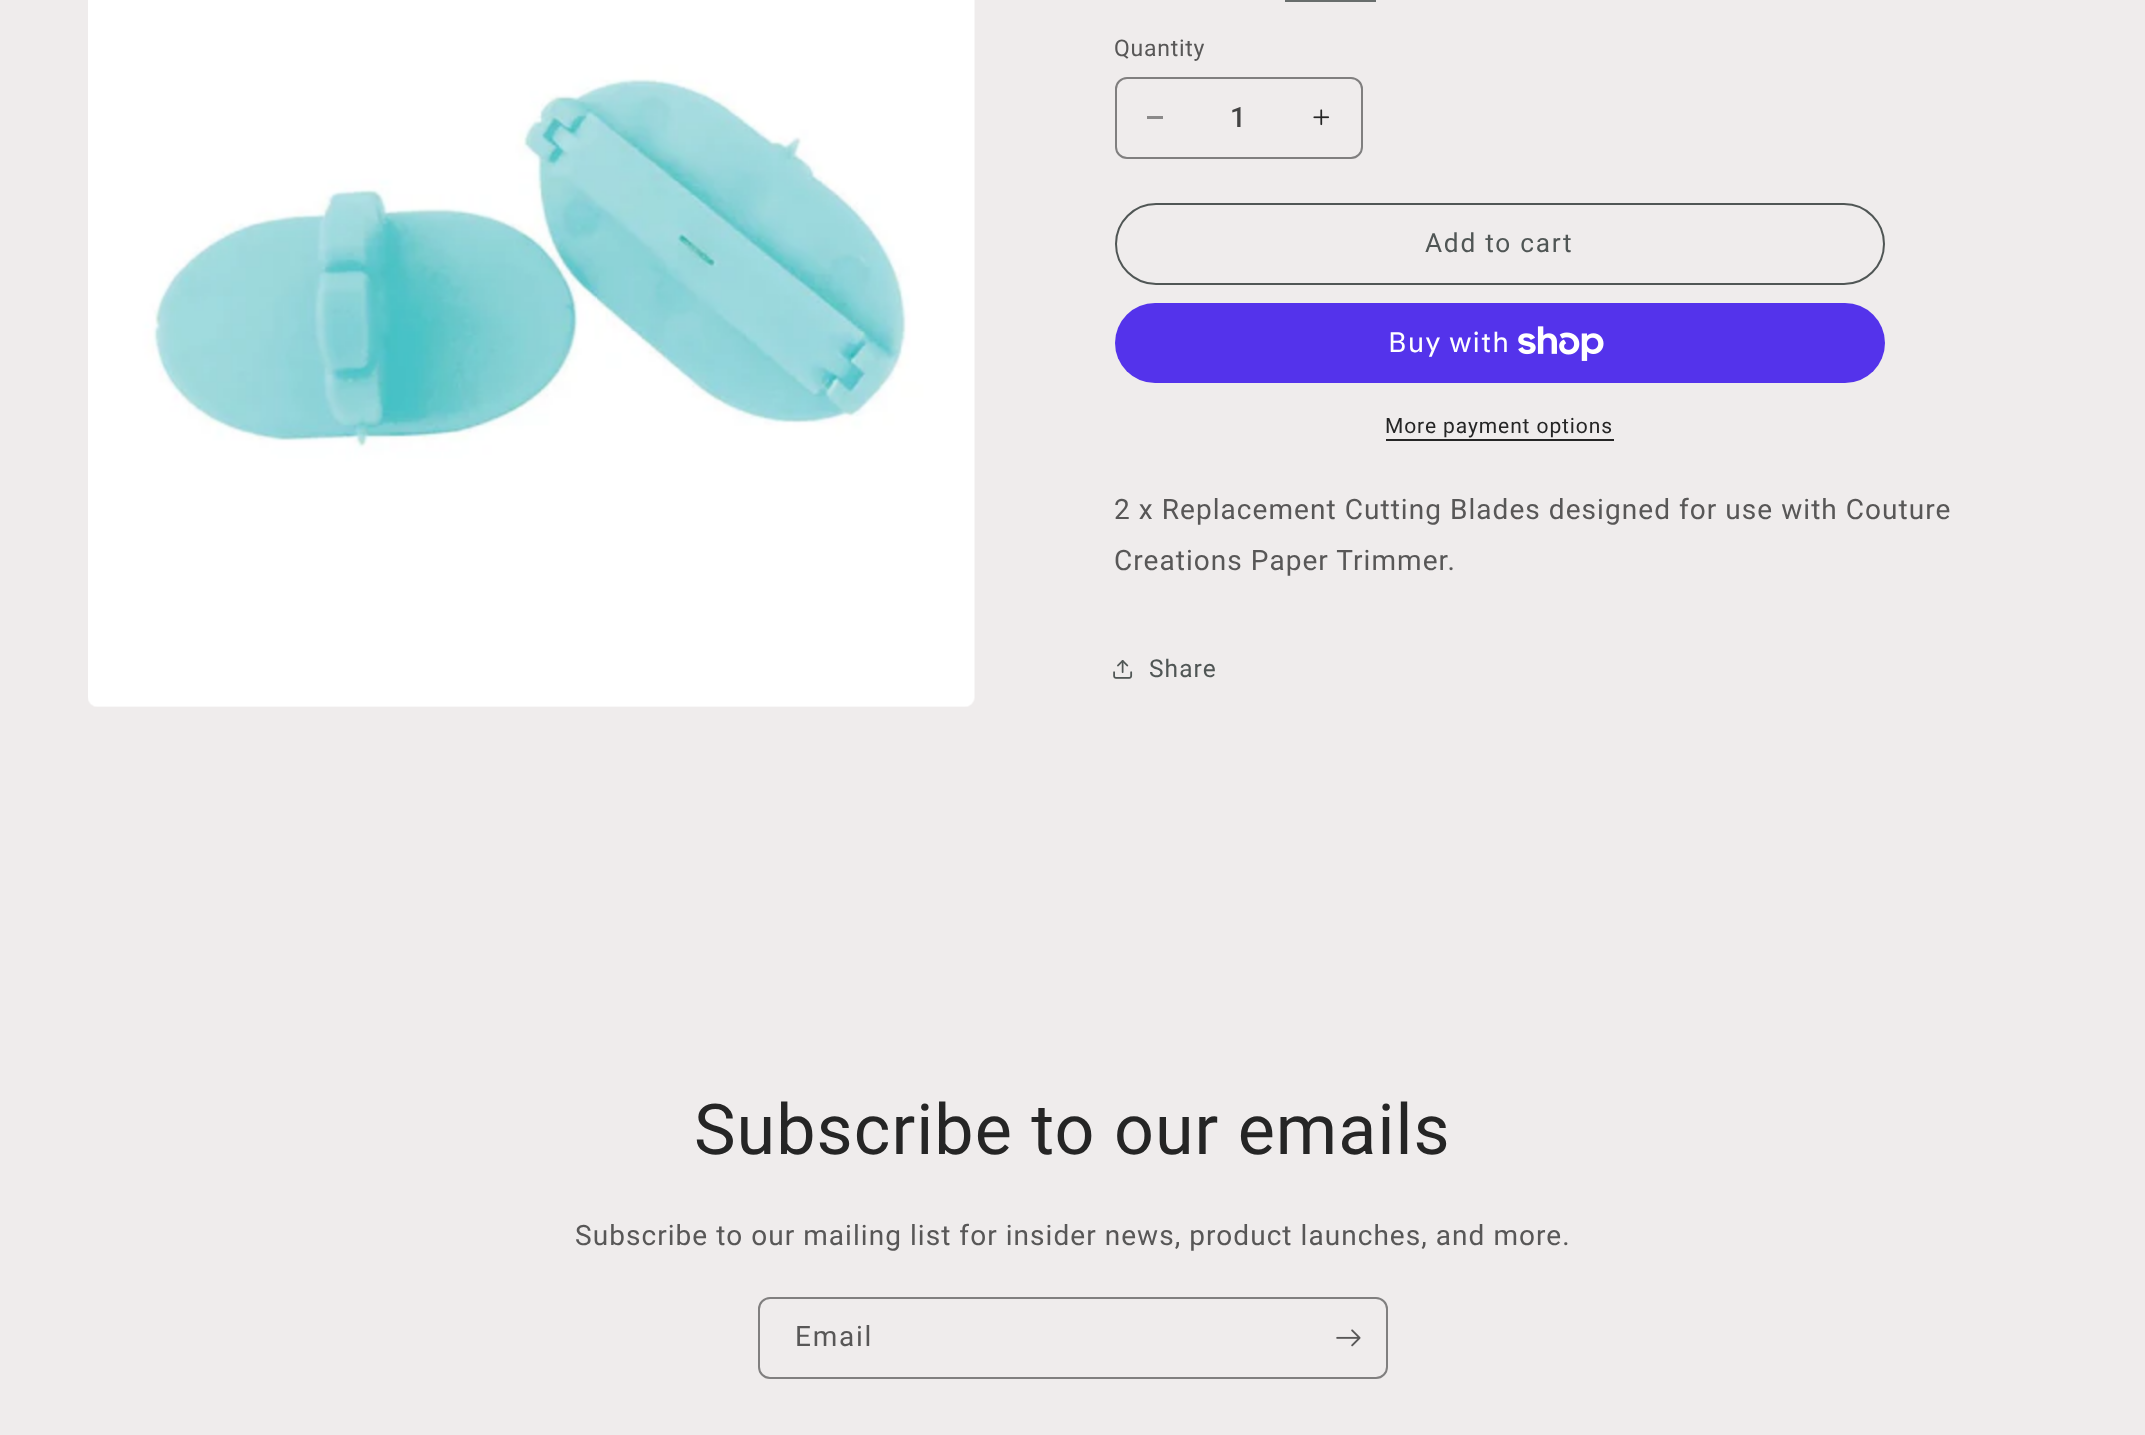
<!DOCTYPE html>
<meta charset="utf-8">
<style>body { margin: 0 } canvas { display: block }</style>
<canvas id="canvas" width="2145" height="1435"></canvas>
<script type="module">
  const canvas = document.getElementById("canvas");
  const ctx = canvas.getContext("2d");
  ctx.miterLimit = 4;
  ctx.fontKerning = "normal";
  async function loadImage(src) {
    const img = new Image();
    img.src = src;
    await img.decode();
    return img;
  }

  ctx.fillStyle = "#efecec";
  ctx.fillRect(0, 0, 2145, 1435);
  ctx.drawImage(await loadImage("img1.png"), 88, 0, 887, 707);
  ctx.fillStyle = "#686d6c";
  ctx.fillRect(1285, 0, 91, 2);
  ctx.letterSpacing = "0.75px";
  ctx.font = "23px Roboto";
  ctx.fillStyle = "#585757";
  ctx.fillText("Quantity", 1114, 56);
  ctx.fillStyle = "#8a8989";
  ctx.fillRect(1147, 116, 16, 3);
  ctx.drawImage(await loadImage("img2.png"), 1313, 109, 17, 17);
  ctx.beginPath();
  ctx.roundRect(1116, 78, 246, 80, 11);
  ctx.strokeStyle = "#807f7f";
  ctx.lineWidth = 2;
  ctx.stroke();
  ctx.letterSpacing = "0px";
  ctx.font = "500 28px Roboto";
  ctx.fillStyle = "#434343";
  ctx.fillText("1", 1230, 127);
  ctx.beginPath();
  ctx.roundRect(1116, 204, 768, 80, 40);
  ctx.strokeStyle = "#505655";
  ctx.stroke();
  ctx.letterSpacing = "1.75px";
  ctx.font = "26.25px Roboto";
  ctx.fillStyle = "#505655";
  ctx.fillText("Add to cart", 1425, 252);
  ctx.fillStyle = "#5433eb";
  ctx.beginPath();
  ctx.roundRect(1115, 303, 770, 80, 40);
  ctx.fill();
  ctx.letterSpacing = "1.05px";
  ctx.font = "28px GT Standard";
  ctx.fillStyle = "#ffffff";
  ctx.fillText("Buy with", 1388, 352);
  ctx.drawImage(await loadImage("img3.png"), 1518, 326, 86, 35);
  ctx.letterSpacing = "0.9px";
  ctx.font = "21px Roboto";
  ctx.fillStyle = "#252525";
  ctx.fillText("More payment options", 1385, 433);
  ctx.fillRect(1386, 439, 228, 2);
  ctx.letterSpacing = "1.05px";
  ctx.font = "28px Roboto";
  ctx.fillStyle = "#585757";
  ctx.fillText("2 x Replacement Cutting Blades designed for use with Couture", 1114, 519);
  ctx.fillText("Creations Paper Trimmer.", 1114, 570);
  ctx.drawImage(await loadImage("img4.png"), 1113, 660, 20, 19);
  ctx.font = "24.5px Roboto";
  ctx.fillStyle = "#505655";
  ctx.fillText("Share", 1149, 677);
  ctx.font = "70px Roboto";
  ctx.fillStyle = "#252525";
  ctx.fillText("Subscribe to our emails", 694, 1154);
  ctx.font = "28px Roboto";
  ctx.fillStyle = "#585757";
  ctx.fillText("Subscribe to our mailing list for insider news, product launches, and more.", 575, 1245);
  ctx.beginPath();
  ctx.roundRect(759, 1298, 628, 80, 11);
  ctx.strokeStyle = "#807f7f";
  ctx.stroke();
  ctx.letterSpacing = "1.75px";
  ctx.fillText("Email", 795, 1346);
  ctx.drawImage(await loadImage("img5.png"), 1336, 1329, 25, 18);
</script>
